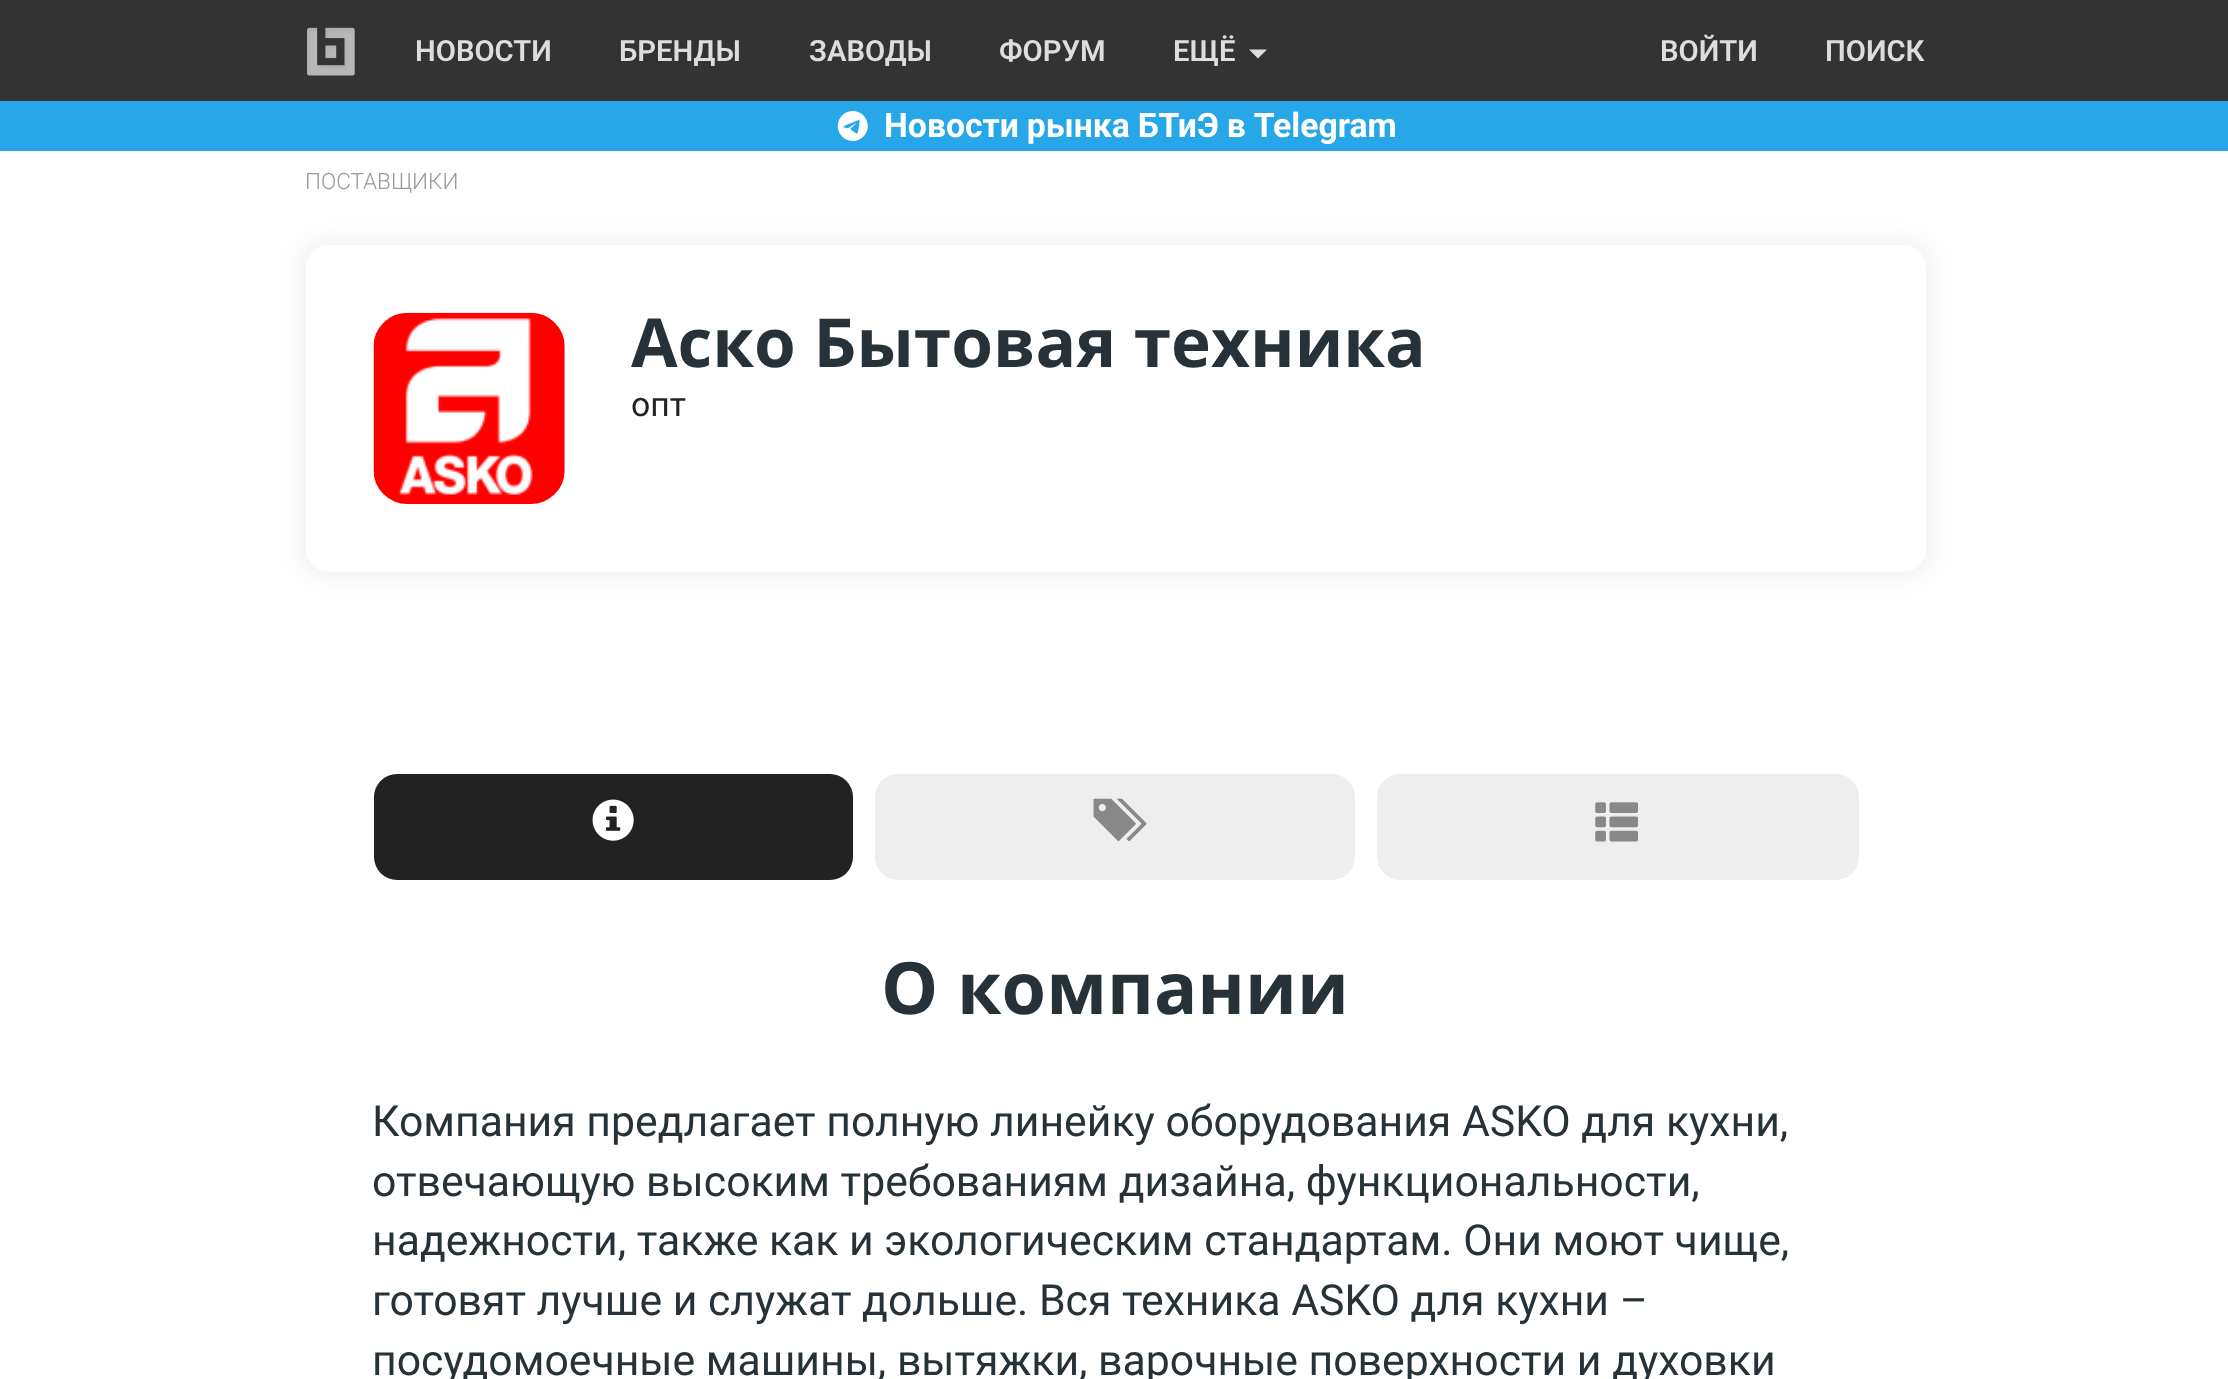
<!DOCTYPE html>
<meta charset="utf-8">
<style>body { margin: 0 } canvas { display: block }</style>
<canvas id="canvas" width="2228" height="1379"></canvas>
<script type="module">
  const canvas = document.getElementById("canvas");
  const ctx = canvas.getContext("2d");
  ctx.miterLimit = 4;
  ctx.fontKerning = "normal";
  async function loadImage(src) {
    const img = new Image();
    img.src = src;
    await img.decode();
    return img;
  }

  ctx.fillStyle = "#ffffff";
  ctx.fillRect(0, 0, 2228, 1379);
  ctx.fillStyle = "#333333";
  ctx.fillRect(0, 0, 2228, 101);
  ctx.drawImage(await loadImage("img1.png"), 307, 27, 48, 49);
  ctx.font = "600 29.25px Roboto";
  ctx.fillStyle = "#dddddd";
  ctx.fillText("НОВОСТИ", 415, 61);
  ctx.fillText("БРЕНДЫ", 619, 61);
  ctx.fillText("ЗАВОДЫ", 809, 61);
  ctx.fillText("ФОРУМ", 999, 61);
  ctx.fillText("ЕЩЁ", 1173, 61);
  ctx.beginPath();
  ctx.moveTo(1249, 49.5);
  ctx.lineTo(1267, 49.5);
  ctx.lineTo(1258, 58.5);
  ctx.closePath();
  ctx.fill();
  ctx.fillText("ВОЙТИ", 1660, 61);
  ctx.fillText("ПОИСК", 1825, 61);
  ctx.fillStyle = "#27a7e7";
  ctx.fillRect(0, 101, 2228, 50);
  ctx.drawImage(await loadImage("img2.png"), 837, 111, 31, 30);
  ctx.wordSpacing = "-0.5px";
  ctx.font = "bold 33.75px Roboto";
  ctx.fillStyle = "#ffffff";
  ctx.fillText("Новости рынка БТиЭ в Telegram", 884, 137);
  ctx.wordSpacing = "0px";
  ctx.font = "300 22.5px Roboto";
  ctx.fillStyle = "#999999";
  ctx.fillText("ПОСТАВЩИКИ", 305, 189);
  ctx.fillStyle = "rgba(0, 0, 0, 0.05)";
  ctx.filter = "blur(11px)";
  ctx.beginPath();
  ctx.roundRect(299, 239, 1634, 339, 29);
  ctx.fill();
  ctx.filter = "none";
  ctx.fillStyle = "#ffffff";
  ctx.beginPath();
  ctx.roundRect(306, 245, 1620, 327, 23);
  ctx.fill();
  ctx.drawImage(await loadImage("img3.png"), 373, 312, 192, 192);
  ctx.font = "bold 67.5px Open Sans";
  ctx.fillStyle = "#263238";
  ctx.fillText("Аско Бытовая техника", 631, 367);
  ctx.font = "33.75px Roboto";
  ctx.fillStyle = "#222222";
  ctx.fillText("опт", 631, 416);
  ctx.beginPath();
  ctx.roundRect(374, 774, 479, 106, 23);
  ctx.fill();
  ctx.drawImage(await loadImage("img4.png"), 592, 799, 42, 42);
  ctx.fillStyle = "#eeeeee";
  ctx.beginPath();
  ctx.roundRect(875, 774, 480, 106, 23);
  ctx.fill();
  ctx.drawImage(await loadImage("img5.png"), 1093, 798, 54, 44);
  ctx.beginPath();
  ctx.roundRect(1377, 774, 482, 106, 23);
  ctx.fill();
  ctx.drawImage(await loadImage("img6.png"), 1595, 802, 43, 40);
  ctx.font = "bold 72px Open Sans";
  ctx.fillStyle = "#263238";
  ctx.fillText("О компании", 881, 1014);
  ctx.font = "42.75px Roboto";
  ctx.fillText("Компания предлагает полную линейку оборудования ASKO для кухни,", 372, 1136);
  ctx.fillText("отвечающую высоким требованиям дизайна, функциональности,", 372, 1196);
  ctx.fillText("надежности, также как и экологическим стандартам. Они моют чище,", 372, 1255);
  ctx.fillText("готовят лучше и служат дольше. Вся техника ASKO для кухни –", 372, 1315);
  ctx.fillText("посудомоечные машины, вытяжки, варочные поверхности и духовки", 372, 1375);
</script>
